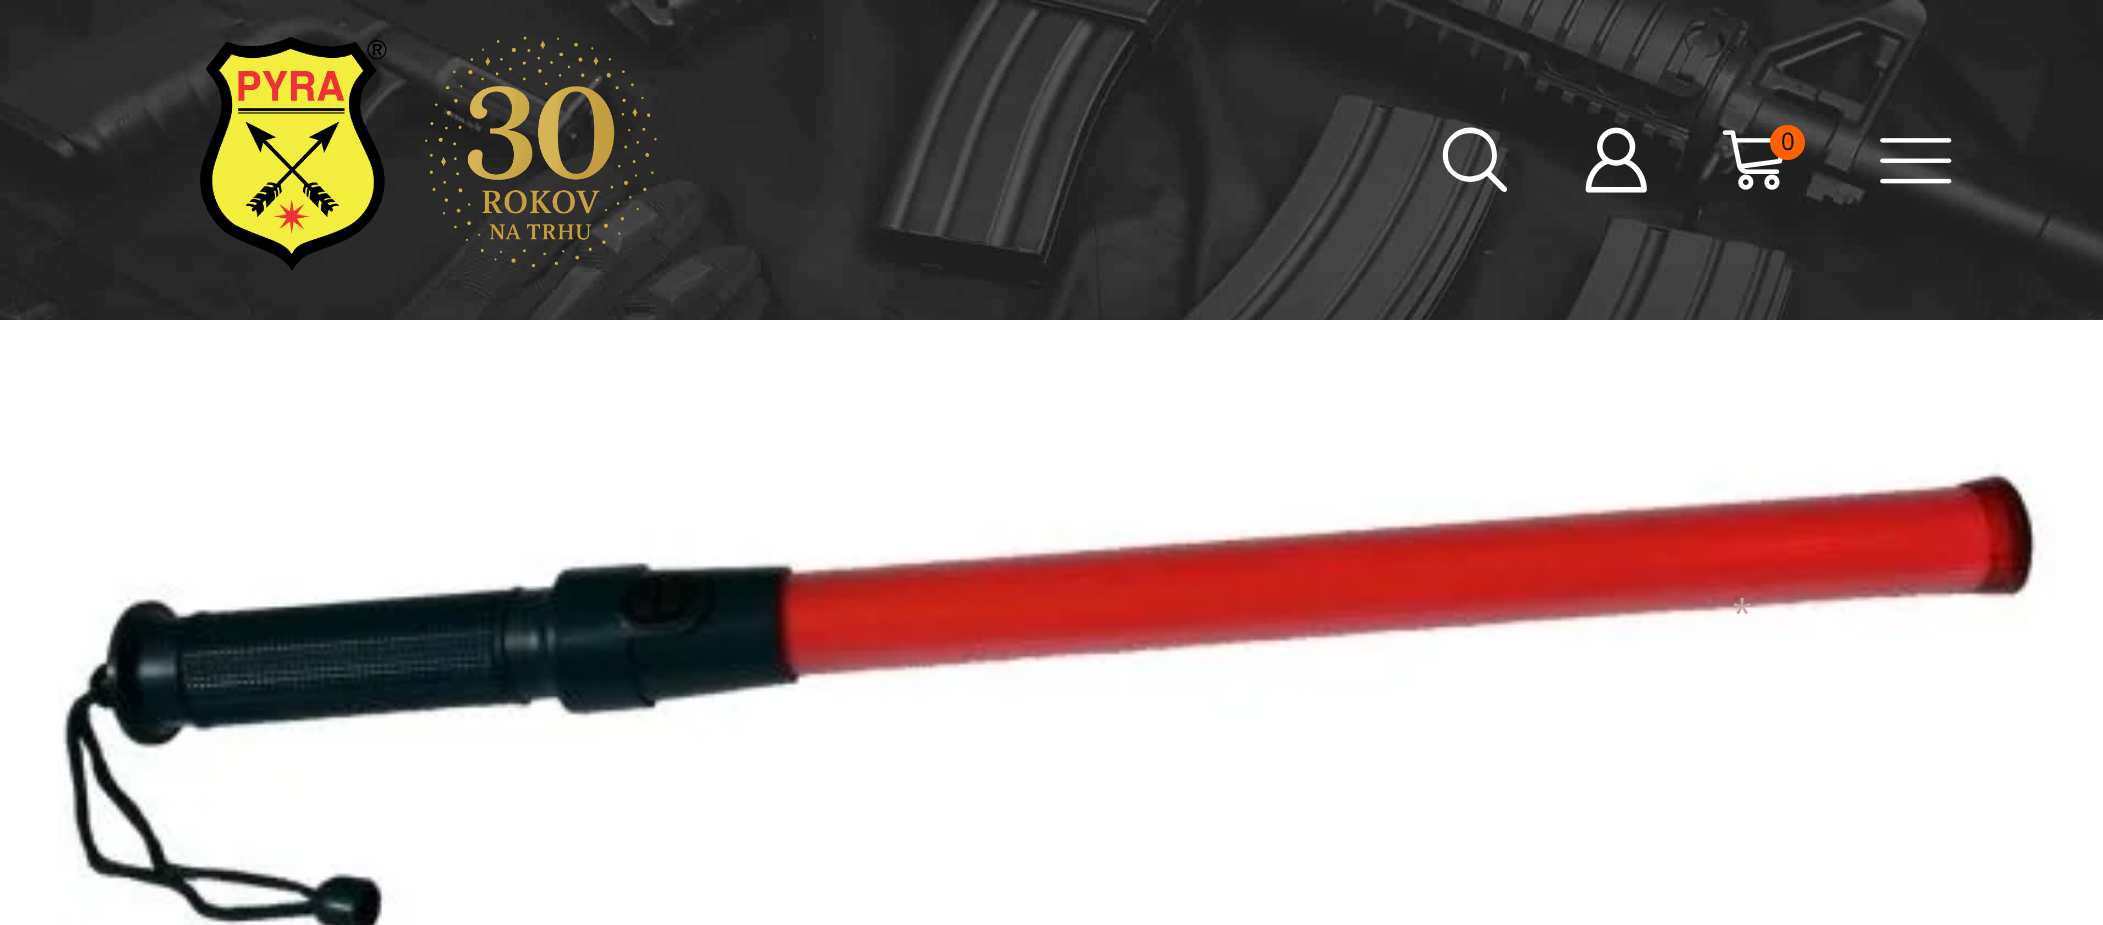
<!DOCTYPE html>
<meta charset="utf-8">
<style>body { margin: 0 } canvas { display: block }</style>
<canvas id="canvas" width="2103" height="925"></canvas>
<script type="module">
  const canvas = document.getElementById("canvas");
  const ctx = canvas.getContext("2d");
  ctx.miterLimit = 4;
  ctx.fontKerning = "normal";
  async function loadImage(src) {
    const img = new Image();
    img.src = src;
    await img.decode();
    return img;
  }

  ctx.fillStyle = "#ffffff";
  ctx.fillRect(0, 0, 2103, 925);
  ctx.drawImage(await loadImage("img1.png"), 0, 0, 2103, 320);
  ctx.drawImage(await loadImage("img2.png"), 200, 36, 457, 235);
  ctx.beginPath();
  ctx.moveTo(1507, 188);
  ctx.lineTo(1491, 172);
  ctx.bezierCurveTo(1501, 160, 1498, 141, 1485, 132);
  ctx.bezierCurveTo(1477, 127, 1468, 126, 1459, 130);
  ctx.bezierCurveTo(1453, 133, 1448, 138, 1445, 144);
  ctx.bezierCurveTo(1434, 171, 1466, 193, 1487, 176);
  ctx.lineTo(1497, 186);
  ctx.bezierCurveTo(1498, 187, 1505, 196, 1507, 190);
  ctx.bezierCurveTo(1507, 189, 1507, 188, 1507, 188);
  ctx.closePath();
  ctx.moveTo(1492, 155);
  ctx.bezierCurveTo(1492, 183, 1448, 184, 1448, 155);
  ctx.bezierCurveTo(1448, 126, 1492, 126, 1492, 155);
  ctx.closePath();
  ctx.fill();
  ctx.drawImage(await loadImage("img3.png"), 1722, 130, 61, 60);
  ctx.fillStyle = "#ff6000";
  ctx.beginPath();
  ctx.arc(1787.5, 142.5, 17.5, 0, Math.PI * 2);
  ctx.fill();
  ctx.font = "24px Open Sans";
  ctx.fillStyle = "#000000";
  ctx.fillText("0", 1781, 150);
  ctx.drawImage(await loadImage("img4.png"), 1880, 138, 72, 46);
  ctx.drawImage(await loadImage("img5.png"), 1585, 127, 62, 66);
  ctx.drawImage(await loadImage("img6.png"), 58, 463, 1997, 462);
  ctx.font = "37px Open Sans";
  ctx.fillStyle = "#cba5a8";
  ctx.fillText("*", 1732, 626);
</script>
